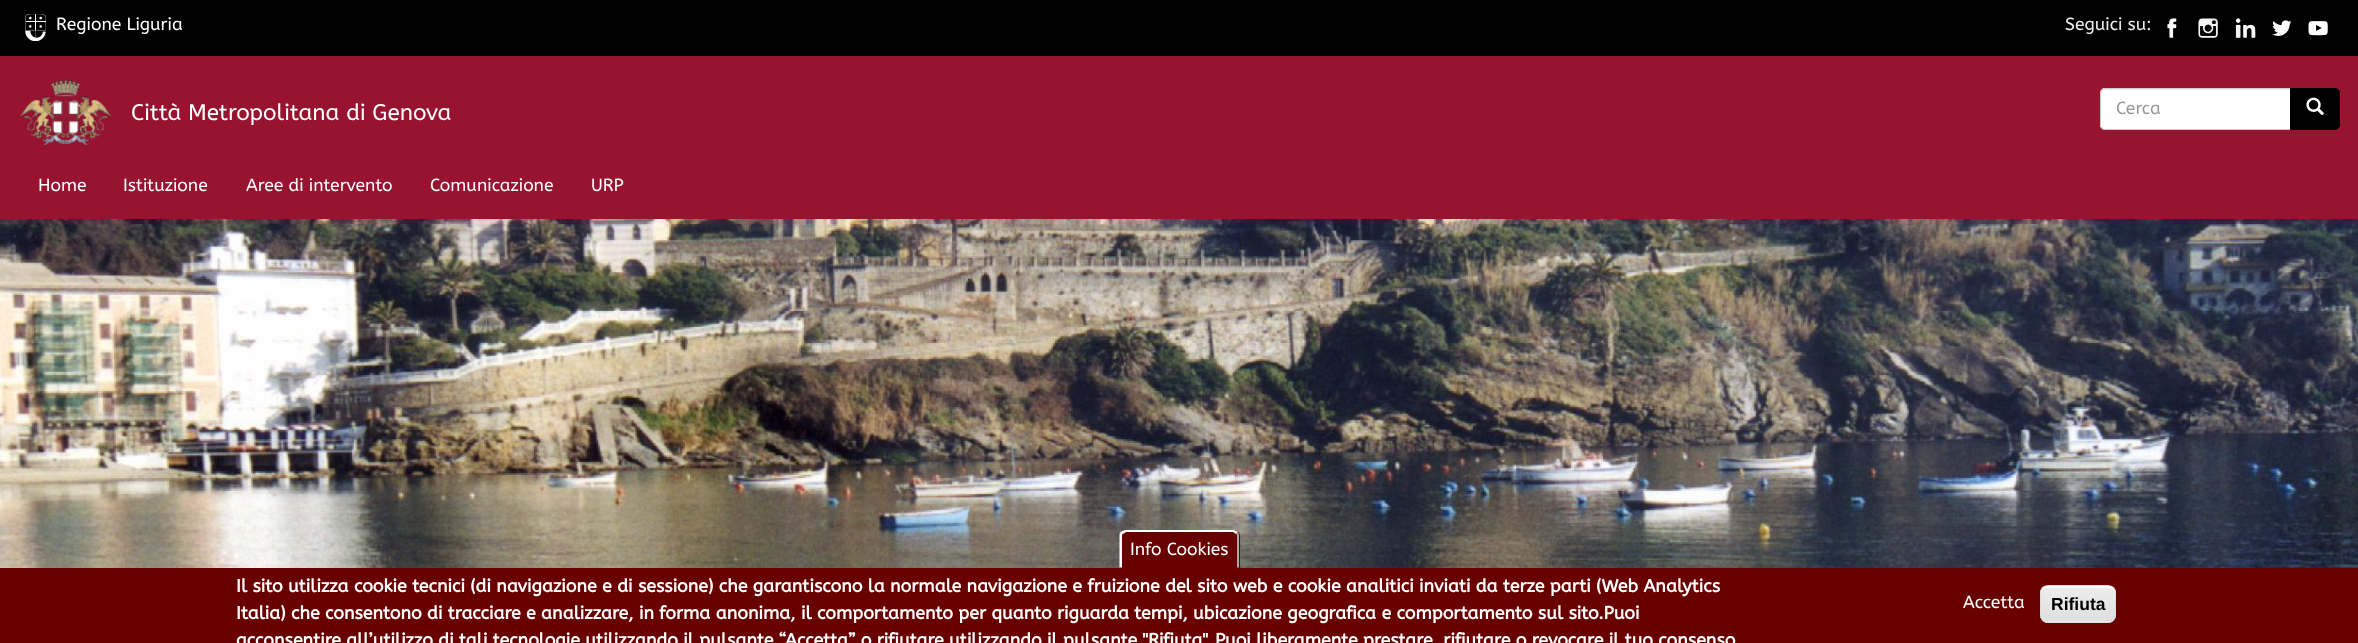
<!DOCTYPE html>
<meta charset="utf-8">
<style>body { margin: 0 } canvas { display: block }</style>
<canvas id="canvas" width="2358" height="643"></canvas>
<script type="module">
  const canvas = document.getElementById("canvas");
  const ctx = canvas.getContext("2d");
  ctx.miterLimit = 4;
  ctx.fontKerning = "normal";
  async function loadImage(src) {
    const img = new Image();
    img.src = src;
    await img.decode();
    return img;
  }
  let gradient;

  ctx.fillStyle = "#ffffff";
  ctx.fillRect(0, 0, 2358, 643);
  ctx.fillStyle = "#97132f";
  ctx.fillRect(0, 56, 2358, 163);
  ctx.fillStyle = "#000000";
  ctx.fillRect(0, 0, 2358, 56);
  ctx.drawImage(await loadImage("img1.png"), 25, 14, 21, 27);
  ctx.font = "17.5px abeezee";
  ctx.fillStyle = "#ffffff";
  ctx.fillText("Regione Liguria", 56, 30);
  ctx.fillStyle = "#eeeeee";
  ctx.fillText("Seguici su:", 2065, 30);
  ctx.drawImage(await loadImage("img2.png"), 2167, 18, 10, 20);
  ctx.drawImage(await loadImage("img3.png"), 2198, 18, 20, 20);
  ctx.drawImage(await loadImage("img4.png"), 2235, 18, 21, 20);
  ctx.drawImage(await loadImage("img5.png"), 2272, 20, 20, 16);
  ctx.drawImage(await loadImage("img6.png"), 2308, 21, 20, 15);
  ctx.drawImage(await loadImage("img7.png"), 18, 80, 95, 65);
  ctx.font = "22.5px abeezee";
  ctx.fillStyle = "#ffffff";
  ctx.fillText("Città Metropolitana di Genova", 131, 120);
  ctx.beginPath();
  ctx.roundRect(2100, 88, 191, 42, [5, 0, 0, 5]);
  ctx.fill();
  ctx.fillStyle = "#ececec";
  ctx.beginPath();
  ctx.moveTo(2105, 90);
  ctx.lineTo(2290, 90);
  ctx.lineTo(2290, 89);
  ctx.lineTo(2105, 89);
  ctx.bezierCurveTo(2102, 89, 2101, 91, 2101, 94);
  ctx.bezierCurveTo(2101, 92, 2103, 90, 2105, 90);
  ctx.closePath();
  ctx.fill();
  ctx.beginPath();
  ctx.roundRect(2100.5, 88.5, 190, 41, [4.5, 0, 0, 4.5]);
  ctx.strokeStyle = "#cccccc";
  ctx.stroke();
  ctx.font = "17.5px abeezee";
  ctx.fillStyle = "#999999";
  ctx.fillText("Cerca", 2116, 114);
  ctx.fillStyle = "#000000";
  ctx.beginPath();
  ctx.roundRect(2290.5, 88.5, 49, 41, [0, 4.5, 4.5, 0]);
  ctx.fill();
  ctx.strokeStyle = "#000000";
  ctx.stroke();
  ctx.drawImage(await loadImage("img8.png"), 2306, 97, 18, 18);
  ctx.fillStyle = "#ffffff";
  ctx.fillText("Home", 38, 191);
  ctx.fillText("Istituzione", 123, 191);
  ctx.fillText("Aree di intervento", 246, 191);
  ctx.fillText("Comunicazione", 430, 191);
  ctx.fillText("URP", 591, 191);
  ctx.drawImage(await loadImage("img9.png"), 0, 219, 2358, 349);
  ctx.fillStyle = "#690000";
  ctx.fillRect(0, 568, 2358, 75);
  ctx.beginPath();
  ctx.roundRect(1120, 530, 120, 38, [6, 6, 0, 0]);
  ctx.fill();
  ctx.fillStyle = "#ffffff";
  ctx.beginPath();
  ctx.moveTo(1126, 530);
  ctx.bezierCurveTo(1124, 530, 1122, 531, 1121, 532);
  ctx.lineTo(1123, 534);
  ctx.lineTo(1126, 532);
  ctx.lineTo(1233, 532);
  ctx.lineTo(1236, 534);
  ctx.lineTo(1238, 532);
  ctx.bezierCurveTo(1237, 531, 1235, 530, 1233, 530);
  ctx.closePath();
  ctx.fill();
  ctx.fillStyle = "#aaaaaa";
  ctx.beginPath();
  ctx.moveTo(1237, 567.5);
  ctx.lineTo(1237, 536);
  ctx.bezierCurveTo(1237, 535, 1236.5, 534, 1236, 533.5);
  ctx.lineTo(1237.5, 532);
  ctx.bezierCurveTo(1238.5, 533, 1239, 534.5, 1239, 536);
  ctx.lineTo(1239, 567.5);
  ctx.closePath();
  ctx.fill();
  ctx.fillStyle = "#ffffff";
  ctx.beginPath();
  ctx.moveTo(1119.5, 567.5);
  ctx.lineTo(1119.5, 534);
  ctx.lineTo(1121, 531.5);
  ctx.lineTo(1123, 533.5);
  ctx.bezierCurveTo(1122.5, 534, 1122, 535, 1122, 536);
  ctx.lineTo(1122, 567.5);
  ctx.closePath();
  ctx.fill();
  ctx.fillText("Info Cookies", 1130, 555);
  ctx.font = "bold 17.85px abeezee";
  ctx.fillText("Il sito utilizza cookie tecnici (di navigazione e di sessione) che garantiscono la normale navigazione e fruizione del sito web e cookie analitici inviati da terze parti (Web Analytics", 236, 592);
  ctx.fillText("Italia) che consentono di tracciare e analizzare, in forma anonima, il comportamento per quanto riguarda tempi, ubicazione geografica e comportamento sul sito.Puoi", 236, 619);
  ctx.fillText("acconsentire all’utilizzo di tali tecnologie utilizzando il pulsante “Accetta” o rifiutare utilizzando il pulsante \"Rifiuta\". Puoi liberamente prestare, rifiutare o revocare il tuo consenso", 236, 646);
  ctx.font = "17.5px abeezee";
  ctx.fillText("Accetta", 1963, 608);
  ctx.save();
  ctx.beginPath();
  ctx.roundRect(2040, 585, 76, 38, 8);
  ctx.clip();
  gradient = ctx.createLinearGradient(2078, 586, 2078, 621);
  gradient.addColorStop(0.05, "#ededed");
  gradient.addColorStop(1, "#dfdfdf");
  ctx.fillStyle = gradient;
  ctx.fillRect(2040, 586, 76, 35);
  gradient = ctx.createLinearGradient(2078, 621, 2078, 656);
  gradient.addColorStop(0.05, "#ededed");
  gradient.addColorStop(1, "#dfdfdf");
  ctx.fillStyle = gradient;
  ctx.fillRect(2040, 621, 76, 2);
  ctx.restore();
  ctx.beginPath();
  ctx.moveTo(2048, 588);
  ctx.lineTo(2109, 588);
  ctx.bezierCurveTo(2112, 588, 2115, 590, 2115, 594);
  ctx.bezierCurveTo(2115, 584, 2107, 586, 2099, 586);
  ctx.lineTo(2057, 586);
  ctx.bezierCurveTo(2049, 586, 2041, 584, 2041, 594);
  ctx.bezierCurveTo(2041, 590, 2044, 588, 2048, 588);
  ctx.closePath();
  ctx.fill();
  ctx.beginPath();
  ctx.roundRect(2040.5, 585.5, 75, 37, 7.5);
  ctx.strokeStyle = "#dcdcdc";
  ctx.stroke();
  ctx.font = "bold 17.5px Liberation Sans";
  ctx.fillStyle = "#000000";
  ctx.fillText("Rifiuta", 2051, 610);
</script>
